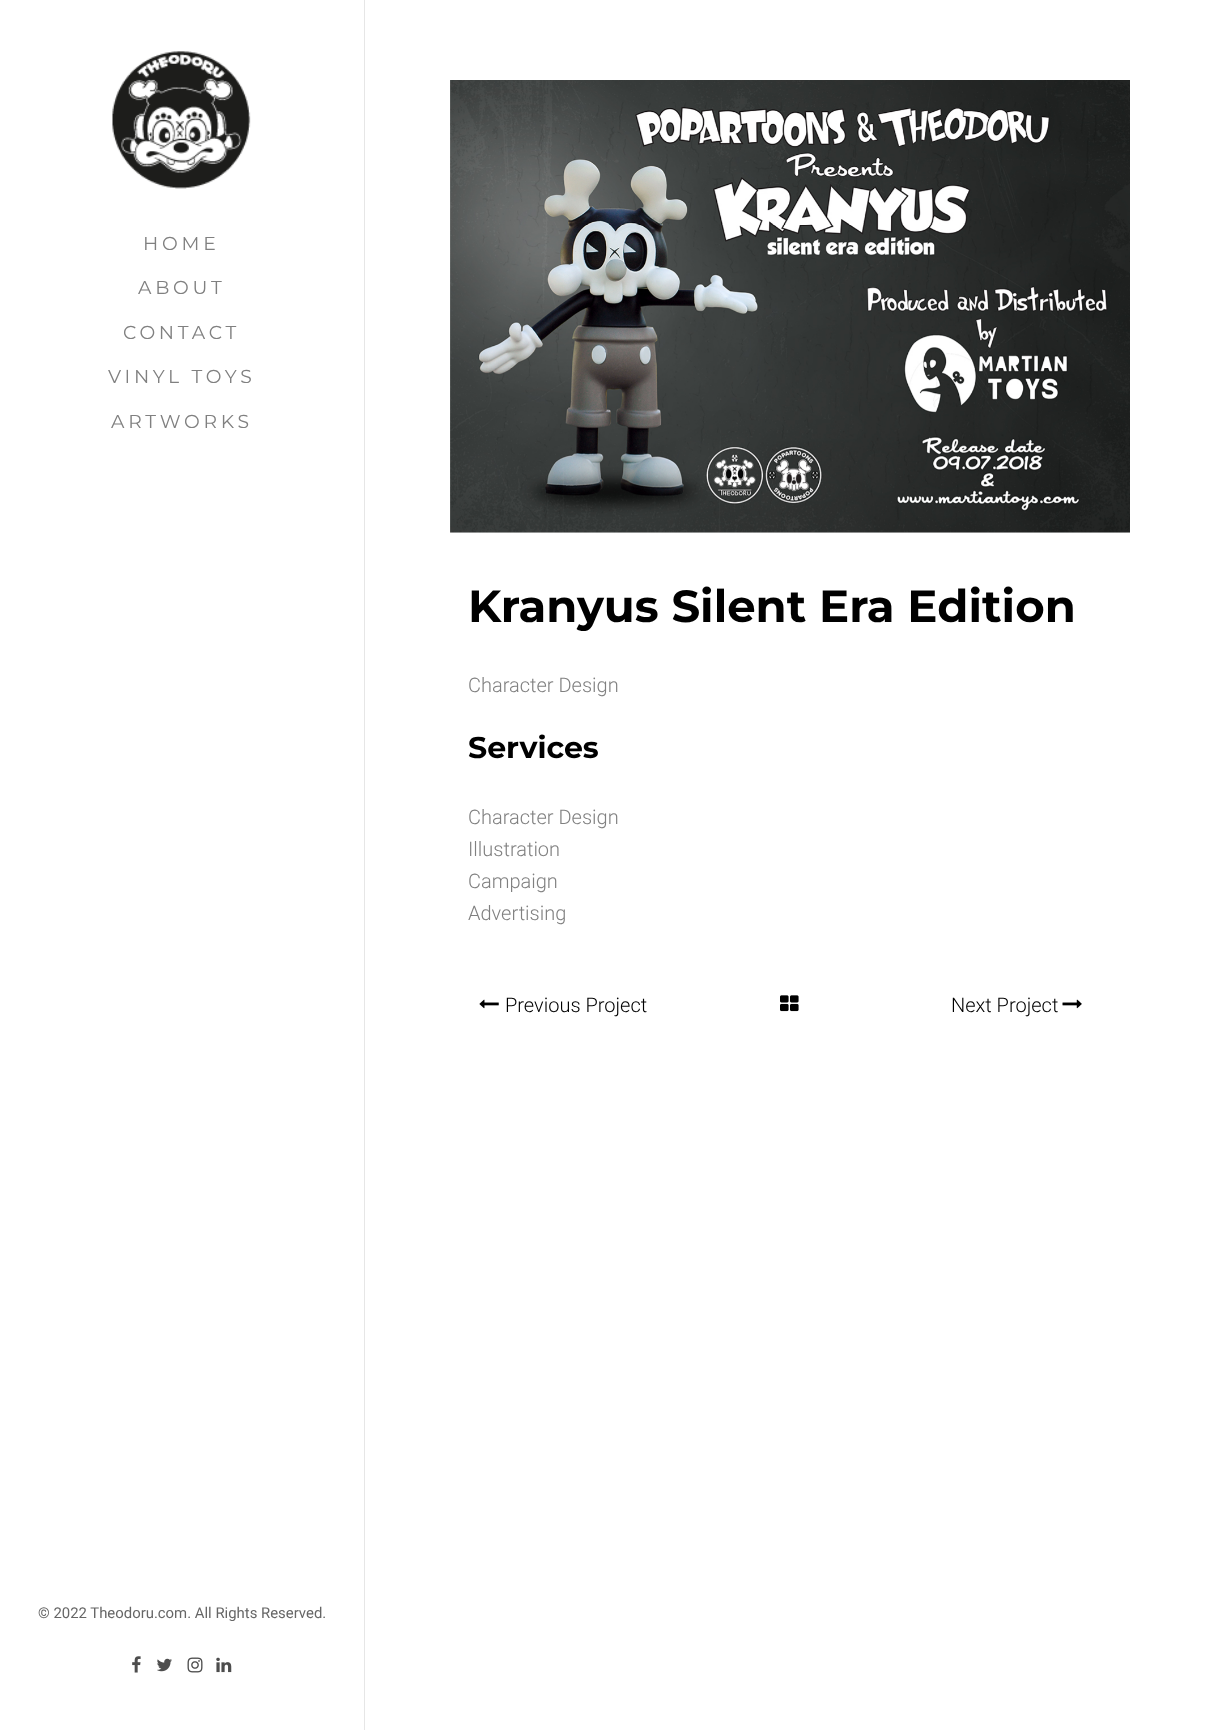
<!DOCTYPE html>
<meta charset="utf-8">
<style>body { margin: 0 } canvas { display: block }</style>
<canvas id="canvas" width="1214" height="1730"></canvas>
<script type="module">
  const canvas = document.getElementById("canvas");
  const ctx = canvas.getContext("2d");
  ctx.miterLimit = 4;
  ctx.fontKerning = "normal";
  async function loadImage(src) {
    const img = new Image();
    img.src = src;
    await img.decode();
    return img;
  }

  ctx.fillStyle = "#ffffff";
  ctx.fillRect(0, 0, 1214, 1730);
  ctx.fillStyle = "#e6e6e6";
  ctx.fillRect(364, 0, 1, 1730);
  ctx.drawImage(await loadImage("img1.png"), 112, 51, 139, 138);
  ctx.letterSpacing = "3.75px";
  ctx.font = "18.75px Montserrat";
  ctx.fillStyle = "#808080";
  ctx.fillText("HOME", 143, 250);
  ctx.fillText("ABOUT", 138, 294);
  ctx.fillText("CONTACT", 123, 339);
  ctx.fillText("VINYL TOYS", 108, 383);
  ctx.fillText("ARTWORKS", 111, 428);
  ctx.letterSpacing = "0px";
  ctx.font = "14.9px Roboto";
  ctx.fillStyle = "#666666";
  ctx.fillText("© 2022 Theodoru.com. All Rights Reserved.", 38, 1618);
  ctx.drawImage(await loadImage("img2.png"), 132, 1656, 9, 17);
  ctx.drawImage(await loadImage("img3.png"), 157, 1658, 15, 14);
  ctx.drawImage(await loadImage("img4.png"), 187, 1657, 16, 16);
  ctx.drawImage(await loadImage("img5.png"), 216, 1657, 16, 16);
  ctx.drawImage(await loadImage("img6.png"), 450, 80, 680, 453);
  ctx.font = "bold 45px Montserrat";
  ctx.fillStyle = "#000000";
  ctx.fillText("Kranyus Silent Era Edition", 468, 622);
  ctx.font = "300 20px Roboto";
  ctx.fillStyle = "#808080";
  ctx.fillText("Character Design", 468, 692);
  ctx.font = "bold 30px Montserrat";
  ctx.fillStyle = "#000000";
  ctx.fillText("Services", 468, 758);
  ctx.font = "300 20px Roboto";
  ctx.fillStyle = "#808080";
  ctx.fillText("Character Design", 468, 824);
  ctx.fillText("Illustration", 468, 856);
  ctx.fillText("Campaign", 468, 888);
  ctx.fillText("Advertising", 468, 920);
  ctx.drawImage(await loadImage("img7.png"), 479, 999, 20, 10);
  ctx.fillStyle = "#000000";
  ctx.fillText("Previous Project", 505, 1012);
  ctx.drawImage(await loadImage("img8.png"), 780, 995, 19, 17);
  ctx.fillText("Next Project", 951, 1012);
  ctx.drawImage(await loadImage("img9.png"), 1062, 999, 20, 10);
</script>
